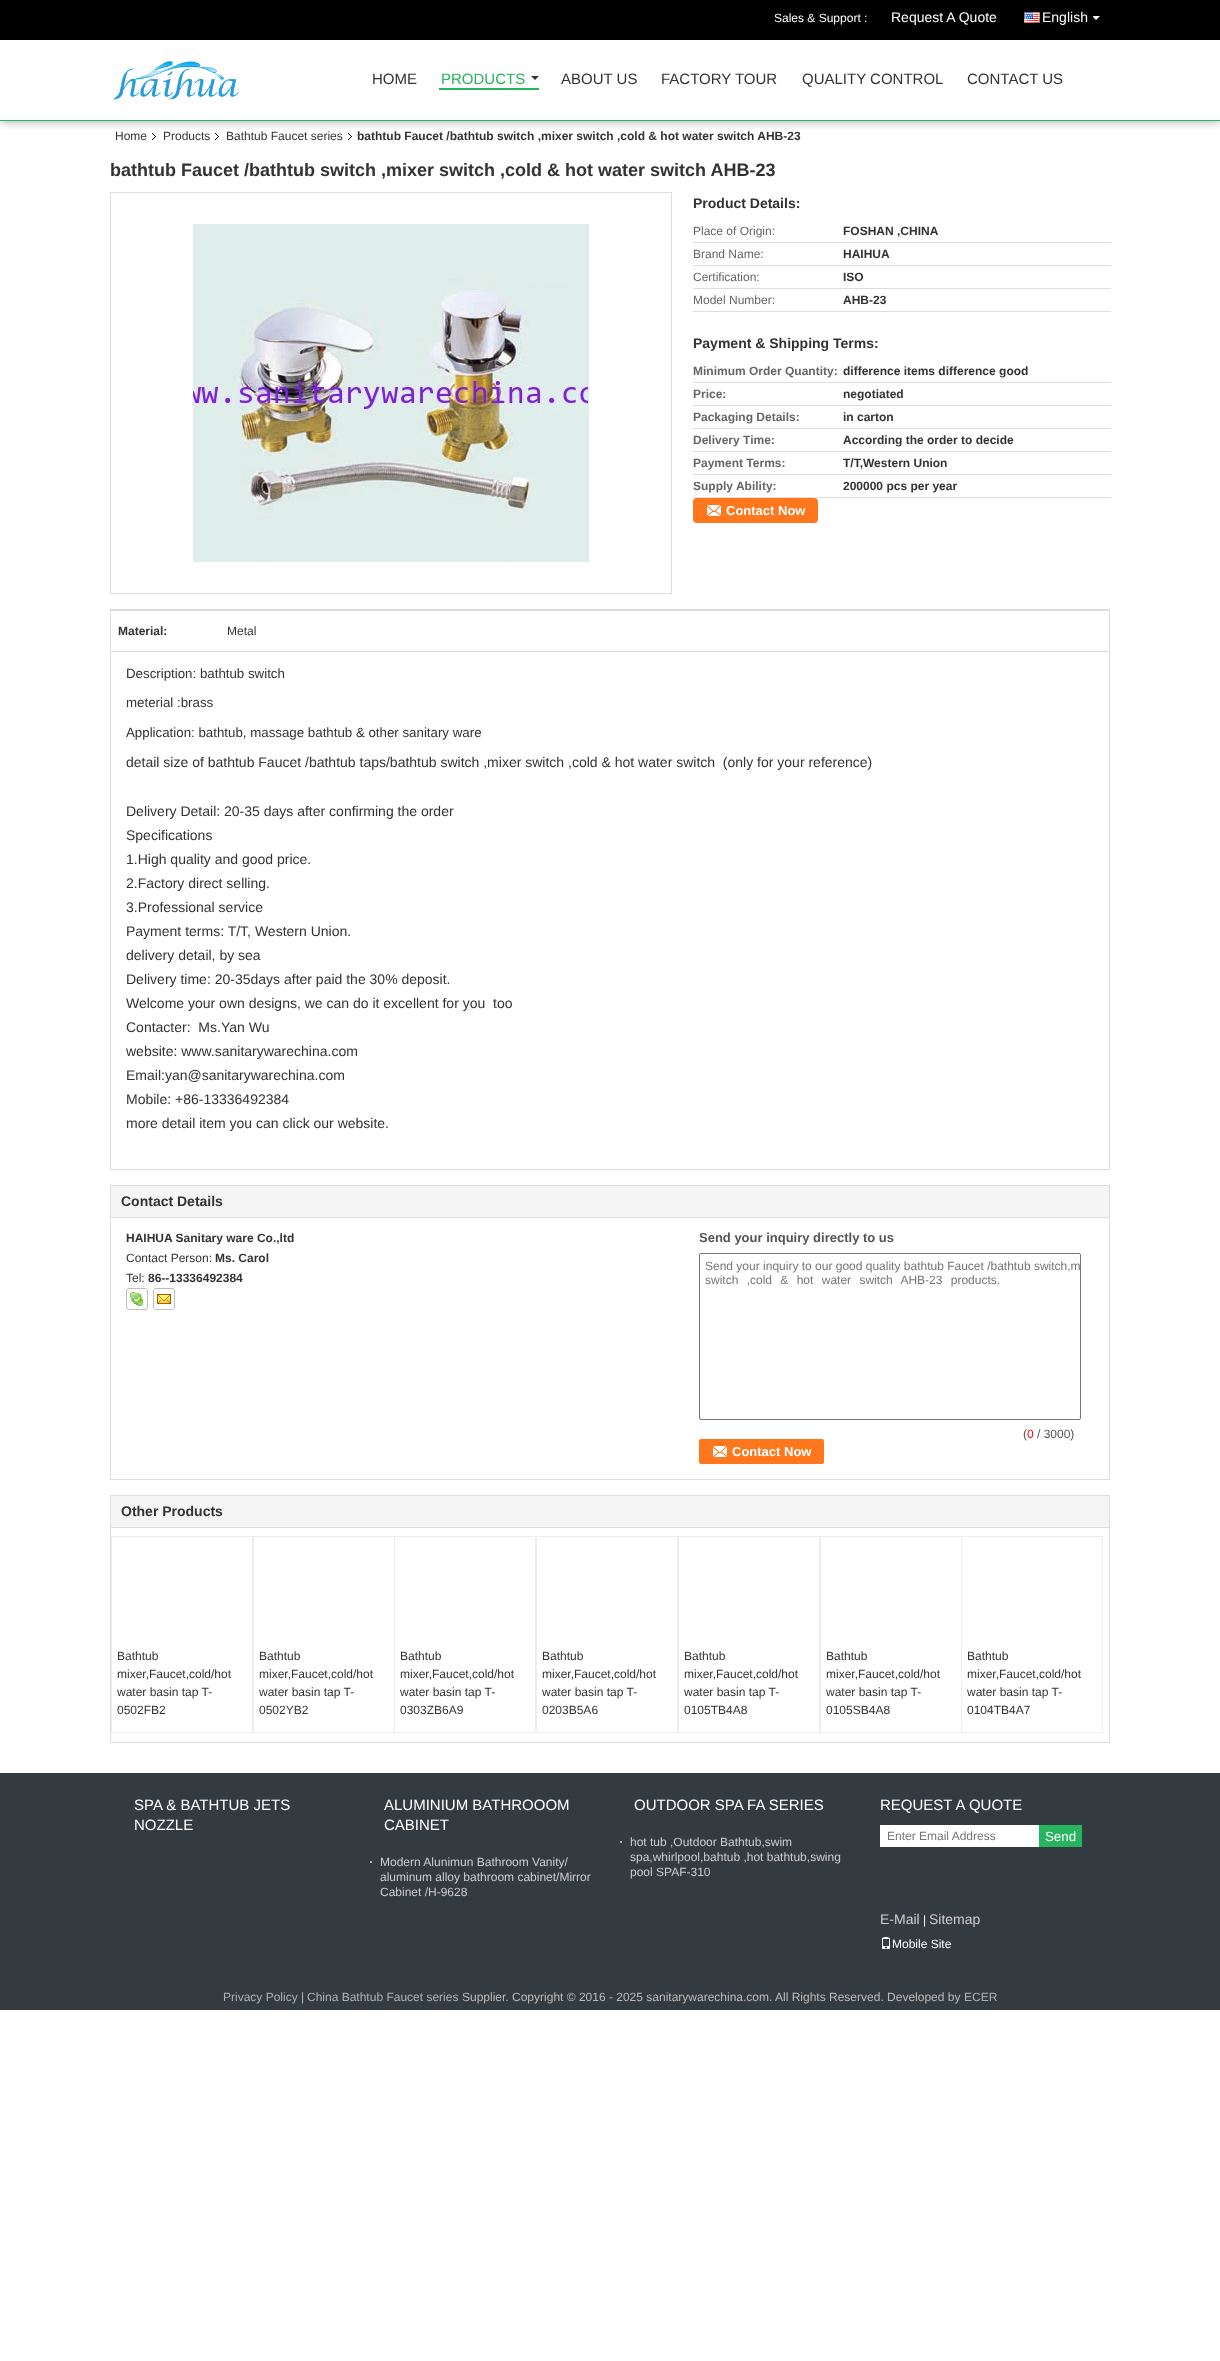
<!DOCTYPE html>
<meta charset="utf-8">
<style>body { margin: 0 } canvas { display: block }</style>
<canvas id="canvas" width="1220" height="2361"></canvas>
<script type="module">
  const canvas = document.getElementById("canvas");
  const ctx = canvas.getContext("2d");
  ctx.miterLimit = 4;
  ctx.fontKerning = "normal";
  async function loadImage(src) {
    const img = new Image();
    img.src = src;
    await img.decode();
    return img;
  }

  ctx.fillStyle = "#ffffff";
  ctx.fillRect(0, 0, 1220, 2361);
  ctx.save();
  ctx.beginPath();
  ctx.rect(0, 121, 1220, 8);
  ctx.clip();
  ctx.fillStyle = "rgba(0, 0, 0, 0.3)";
  ctx.filter = "blur(5px)";
  ctx.beginPath();
  ctx.rect(1, 1, 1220, 121);
  ctx.fill();
  ctx.filter = "none";
  ctx.restore();
  ctx.fillStyle = "#27b45f";
  ctx.fillRect(0, 120, 1220, 1);
  ctx.fillStyle = "#000000";
  ctx.fillRect(0, 0, 1220, 40);
  ctx.font = "12px Liberation Sans";
  ctx.fillStyle = "#ffffff";
  ctx.fillText("Sales & Support :", 774, 22);
  ctx.font = "14px Liberation Sans";
  ctx.fillText("Request A Quote", 891, 22);
  ctx.drawImage(await loadImage("img1.png"), 1024, 12, 16, 11);
  ctx.fillText("English", 1042, 22);
  ctx.drawImage(await loadImage("img2.png"), 1093, 16, 7, 4);
  ctx.drawImage(await loadImage("img3.png"), 112, 61, 127, 39);
  ctx.font = "15px Liberation Sans";
  ctx.fillStyle = "#333333";
  ctx.fillText("HOME", 372, 84);
  ctx.fillStyle = "#27b45f";
  ctx.fillRect(439, 88, 100, 2);
  ctx.fillText("PRODUCTS", 441, 84);
  ctx.fillStyle = "#333333";
  ctx.beginPath();
  ctx.moveTo(531, 76);
  ctx.lineTo(539, 76);
  ctx.lineTo(535, 80);
  ctx.closePath();
  ctx.fill();
  ctx.fillText("ABOUT US", 561, 84);
  ctx.fillText("FACTORY TOUR", 661, 84);
  ctx.fillText("QUALITY CONTROL", 802, 84);
  ctx.fillText("CONTACT US", 967, 84);
  ctx.font = "12px Liberation Sans";
  ctx.fillText("Home", 115, 140);
  ctx.drawImage(await loadImage("img4.png"), 152, 133, 4, 7);
  ctx.fillText("Products", 163, 140);
  ctx.drawImage(await loadImage("img4.png"), 215, 133, 4, 7);
  ctx.fillText("Bathtub Faucet series", 226, 140);
  ctx.drawImage(await loadImage("img4.png"), 348, 133, 4, 7);
  ctx.font = "bold 12px Liberation Sans";
  ctx.fillText("bathtub Faucet /bathtub switch ,mixer switch ,cold & hot water switch AHB-23", 357, 140);
  ctx.font = "bold 18px Liberation Sans";
  ctx.fillText("bathtub Faucet /bathtub switch ,mixer switch ,cold & hot water switch AHB-23", 110, 176);
  ctx.strokeStyle = "#dedede";
  ctx.strokeRect(110.5, 192.5, 561, 401);
  ctx.drawImage(await loadImage("img5.png"), 193, 224, 396, 338);
  ctx.font = "bold 14px Liberation Sans";
  ctx.fillText("Product Details:", 693, 208);
  ctx.font = "12px Liberation Sans";
  ctx.fillStyle = "#666666";
  ctx.fillText("Place of Origin:", 693, 235);
  ctx.fillStyle = "#dedede";
  ctx.fillRect(693, 242, 418, 1);
  ctx.font = "bold 12px Liberation Sans";
  ctx.fillStyle = "#333333";
  ctx.fillText("FOSHAN ,CHINA", 843, 235);
  ctx.font = "12px Liberation Sans";
  ctx.fillStyle = "#666666";
  ctx.fillText("Brand Name:", 693, 258);
  ctx.fillStyle = "#dedede";
  ctx.fillRect(693, 265, 418, 1);
  ctx.font = "bold 12px Liberation Sans";
  ctx.fillStyle = "#333333";
  ctx.fillText("HAIHUA", 843, 258);
  ctx.font = "12px Liberation Sans";
  ctx.fillStyle = "#666666";
  ctx.fillText("Certification:", 693, 281);
  ctx.fillStyle = "#dedede";
  ctx.fillRect(693, 288, 418, 1);
  ctx.font = "bold 12px Liberation Sans";
  ctx.fillStyle = "#333333";
  ctx.fillText("ISO", 843, 281);
  ctx.font = "12px Liberation Sans";
  ctx.fillStyle = "#666666";
  ctx.fillText("Model Number:", 693, 304);
  ctx.fillStyle = "#dedede";
  ctx.fillRect(693, 311, 418, 1);
  ctx.font = "bold 12px Liberation Sans";
  ctx.fillStyle = "#333333";
  ctx.fillText("AHB-23", 843, 304);
  ctx.font = "bold 14px Liberation Sans";
  ctx.fillText("Payment & Shipping Terms:", 693, 348);
  ctx.font = "bold 12px Liberation Sans";
  ctx.fillStyle = "#666666";
  ctx.fillText("Minimum Order Quantity:", 693, 375);
  ctx.fillStyle = "#dedede";
  ctx.fillRect(693, 382, 418, 1);
  ctx.fillStyle = "#333333";
  ctx.fillText("difference items difference good", 843, 375);
  ctx.fillStyle = "#666666";
  ctx.fillText("Price:", 693, 398);
  ctx.fillStyle = "#dedede";
  ctx.fillRect(693, 405, 418, 1);
  ctx.fillStyle = "#333333";
  ctx.fillText("negotiated", 843, 398);
  ctx.fillStyle = "#666666";
  ctx.fillText("Packaging Details:", 693, 421);
  ctx.fillStyle = "#dedede";
  ctx.fillRect(693, 428, 418, 1);
  ctx.fillStyle = "#333333";
  ctx.fillText("in carton", 843, 421);
  ctx.fillStyle = "#666666";
  ctx.fillText("Delivery Time:", 693, 444);
  ctx.fillStyle = "#dedede";
  ctx.fillRect(693, 451, 418, 1);
  ctx.fillStyle = "#333333";
  ctx.fillText("According the order to decide", 843, 444);
  ctx.fillStyle = "#666666";
  ctx.fillText("Payment Terms:", 693, 467);
  ctx.fillStyle = "#dedede";
  ctx.fillRect(693, 474, 418, 1);
  ctx.fillStyle = "#333333";
  ctx.fillText("T/T,Western Union", 843, 467);
  ctx.fillStyle = "#666666";
  ctx.fillText("Supply Ability:", 693, 490);
  ctx.fillStyle = "#dedede";
  ctx.fillRect(693, 497, 418, 1);
  ctx.fillStyle = "#333333";
  ctx.fillText("200000 pcs per year", 843, 490);
  ctx.fillStyle = "#ff771c";
  ctx.beginPath();
  ctx.roundRect(693, 498, 125, 25, 4);
  ctx.fill();
  ctx.drawImage(await loadImage("img6.png"), 707, 505, 14, 11);
  ctx.font = "bold 13px Liberation Sans";
  ctx.fillStyle = "#ffffff";
  ctx.fillText("Contact Now", 726, 515);
  ctx.strokeStyle = "#dddddd";
  ctx.strokeRect(110.5, 609.5, 999, 560);
  ctx.fillStyle = "#dcdcdc";
  ctx.fillRect(111, 610, 998, 1);
  ctx.fillRect(111, 651, 998, 1);
  ctx.font = "bold 12px Liberation Sans";
  ctx.fillStyle = "#333333";
  ctx.fillText("Material:", 118, 635);
  ctx.font = "12px Liberation Sans";
  ctx.fillText("Metal", 227, 635);
  ctx.font = "13.3px Liberation Sans";
  ctx.fillText("Description: bathtub switch", 126, 678);
  ctx.fillText("meterial :brass", 126, 707);
  ctx.fillText("Application: bathtub, massage bathtub & other sanitary ware", 126, 737);
  ctx.font = "14px Liberation Sans";
  ctx.fillText("detail size of bathtub Faucet /bathtub taps/bathtub switch ,mixer switch ,cold & hot water switch  (only for your reference)", 126, 767);
  ctx.fillText("Delivery Detail: 20-35 days after confirming the order", 126, 816);
  ctx.fillText("Specifications", 126, 840);
  ctx.fillText("1.High quality and good price.", 126, 864);
  ctx.fillText("2.Factory direct selling.", 126, 888);
  ctx.fillText("3.Professional service", 126, 912);
  ctx.fillText("Payment terms: T/T, Western Union.", 126, 936);
  ctx.fillText("delivery detail, by sea", 126, 960);
  ctx.fillText("Delivery time: 20-35days after paid the 30% deposit.", 126, 984);
  ctx.fillText("Welcome your own designs, we can do it excellent for you  too", 126, 1008);
  ctx.fillText("Contacter:  Ms.Yan Wu", 126, 1032);
  ctx.fillText("website: www.sanitarywarechina.com", 126, 1056);
  ctx.fillText("Email:yan@sanitarywarechina.com", 126, 1080);
  ctx.fillText("Mobile: +86-13336492384", 126, 1104);
  ctx.fillText("more detail item you can click our website.", 126, 1128);
  ctx.fillStyle = "#f5f5f5";
  ctx.beginPath();
  ctx.rect(110.5, 1185.5, 999, 32);
  ctx.fill();
  ctx.stroke();
  ctx.font = "bold 14px Liberation Sans";
  ctx.fillStyle = "#333333";
  ctx.fillText("Contact Details", 121, 1206);
  ctx.fillStyle = "#dddddd";
  ctx.fillRect(1109, 1218, 1, 262);
  ctx.fillRect(110, 1479, 1000, 1);
  ctx.fillRect(110, 1218, 1, 262);
  ctx.font = "bold 12px Liberation Sans";
  ctx.fillStyle = "#333333";
  ctx.fillText("HAIHUA Sanitary ware Co.,ltd", 126, 1242);
  ctx.font = "12px Liberation Sans";
  ctx.fillText("Contact Person:", 126, 1262);
  ctx.font = "bold 12px Liberation Sans";
  ctx.fillText("Ms. Carol", 215, 1262);
  ctx.font = "12px Liberation Sans";
  ctx.fillText("Tel:", 126, 1282);
  ctx.font = "bold 12px Liberation Sans";
  ctx.fillText("86--13336492384", 148, 1282);
  ctx.drawImage(await loadImage("img7.png"), 126, 1288, 22, 22);
  ctx.drawImage(await loadImage("img8.png"), 153, 1288, 22, 22);
  ctx.font = "bold 13px Liberation Sans";
  ctx.fillStyle = "#555555";
  ctx.fillText("Send your inquiry directly to us", 699, 1242);
  ctx.beginPath();
  ctx.roundRect(699.5, 1253.5, 381, 166, 1.5);
  ctx.strokeStyle = "#767676";
  ctx.stroke();
  ctx.font = "12px Liberation Sans";
  ctx.fillStyle = "#757575";
  ctx.fillText("Send your inquiry to our good quality bathtub Faucet /bathtub switch,m", 705, 1270);
  ctx.wordSpacing = "5px";
  ctx.fillText("switch ,cold & hot water switch AHB-23 products.", 705, 1284);
  ctx.wordSpacing = "0px";
  ctx.fillStyle = "#555555";
  ctx.fillText("(", 1023, 1438);
  ctx.fillStyle = "#ff0000";
  ctx.fillText("0", 1027, 1438);
  ctx.fillStyle = "#555555";
  ctx.fillText("/ 3000)", 1037, 1438);
  ctx.fillStyle = "#ff771c";
  ctx.beginPath();
  ctx.roundRect(699, 1439, 125, 25, 2);
  ctx.fill();
  ctx.drawImage(await loadImage("img6.png"), 713, 1446, 14, 11);
  ctx.font = "bold 13px Liberation Sans";
  ctx.fillStyle = "#ffffff";
  ctx.fillText("Contact Now", 732, 1456);
  ctx.strokeStyle = "#dedede";
  ctx.strokeRect(110.5, 1495.5, 999, 247);
  ctx.fillStyle = "#f5f5f5";
  ctx.fillRect(111, 1496, 998, 31);
  ctx.fillStyle = "#dedede";
  ctx.fillRect(111, 1527, 998, 1);
  ctx.font = "bold 14px Liberation Sans";
  ctx.fillStyle = "#333333";
  ctx.fillText("Other Products", 121, 1516);
  ctx.strokeStyle = "#eeeeee";
  ctx.strokeRect(111.5, 1536.5, 141, 196);
  ctx.font = "12px Liberation Sans";
  ctx.fillText("Bathtub", 117, 1660);
  ctx.fillText("mixer,Faucet,cold/hot", 117, 1678);
  ctx.fillText("water basin tap T-", 117, 1696);
  ctx.fillText("0502FB2", 117, 1714);
  ctx.strokeRect(253.5, 1536.5, 141, 196);
  ctx.fillText("Bathtub", 259, 1660);
  ctx.fillText("mixer,Faucet,cold/hot", 259, 1678);
  ctx.fillText("water basin tap T-", 259, 1696);
  ctx.fillText("0502YB2", 259, 1714);
  ctx.fillStyle = "#ffffff";
  ctx.fillRect(394, 1537, 1, 196);
  ctx.strokeRect(394.5, 1536.5, 141, 196);
  ctx.fillStyle = "#333333";
  ctx.fillText("Bathtub", 400, 1660);
  ctx.fillText("mixer,Faucet,cold/hot", 400, 1678);
  ctx.fillText("water basin tap T-", 400, 1696);
  ctx.fillText("0303ZB6A9", 400, 1714);
  ctx.strokeRect(536.5, 1536.5, 141, 196);
  ctx.fillText("Bathtub", 542, 1660);
  ctx.fillText("mixer,Faucet,cold/hot", 542, 1678);
  ctx.fillText("water basin tap T-", 542, 1696);
  ctx.fillText("0203B5A6", 542, 1714);
  ctx.strokeRect(678.5, 1536.5, 141, 196);
  ctx.fillText("Bathtub", 684, 1660);
  ctx.fillText("mixer,Faucet,cold/hot", 684, 1678);
  ctx.fillText("water basin tap T-", 684, 1696);
  ctx.fillText("0105TB4A8", 684, 1714);
  ctx.strokeRect(820.5, 1536.5, 141, 196);
  ctx.fillText("Bathtub", 826, 1660);
  ctx.fillText("mixer,Faucet,cold/hot", 826, 1678);
  ctx.fillText("water basin tap T-", 826, 1696);
  ctx.fillText("0105SB4A8", 826, 1714);
  ctx.fillStyle = "#ffffff";
  ctx.fillRect(961, 1537, 1, 196);
  ctx.strokeRect(961.5, 1536.5, 141, 196);
  ctx.fillStyle = "#333333";
  ctx.fillText("Bathtub", 967, 1660);
  ctx.fillText("mixer,Faucet,cold/hot", 967, 1678);
  ctx.fillText("water basin tap T-", 967, 1696);
  ctx.fillText("0104TB4A7", 967, 1714);
  ctx.fillStyle = "#333b41";
  ctx.fillRect(0, 1773, 1220, 237);
  ctx.font = "15px Liberation Sans";
  ctx.fillStyle = "#ffffff";
  ctx.fillText("SPA & BATHTUB JETS", 134, 1810);
  ctx.fillText("NOZZLE", 134, 1830);
  ctx.fillText("ALUMINIUM BATHROOOM", 384, 1810);
  ctx.fillText("CABINET", 384, 1830);
  ctx.fillStyle = "#dddddd";
  ctx.beginPath();
  ctx.arc(371, 1862, 1, 0, Math.PI * 2);
  ctx.fill();
  ctx.font = "12px Liberation Sans";
  ctx.fillStyle = "#cccccc";
  ctx.fillText("Modern Alunimun Bathroom Vanity/", 380, 1866);
  ctx.fillText("aluminum alloy bathroom cabinet/Mirror", 380, 1881);
  ctx.fillText("Cabinet /H-9628", 380, 1896);
  ctx.font = "15px Liberation Sans";
  ctx.fillStyle = "#ffffff";
  ctx.fillText("OUTDOOR SPA FA SERIES", 634, 1810);
  ctx.fillStyle = "#dddddd";
  ctx.beginPath();
  ctx.arc(621, 1842, 1, 0, Math.PI * 2);
  ctx.fill();
  ctx.font = "12px Liberation Sans";
  ctx.fillStyle = "#cccccc";
  ctx.fillText("hot tub ,Outdoor Bathtub,swim", 630, 1846);
  ctx.fillText("spa,whirlpool,bahtub ,hot bathtub,swing", 630, 1861);
  ctx.fillText("pool SPAF-310", 630, 1876);
  ctx.font = "15px Liberation Sans";
  ctx.fillStyle = "#ffffff";
  ctx.fillText("REQUEST A QUOTE", 880, 1810);
  ctx.fillRect(880, 1825, 159, 22);
  ctx.font = "12px Liberation Sans";
  ctx.fillStyle = "#757575";
  ctx.fillText("Enter Email Address", 887, 1840);
  ctx.fillStyle = "#27b45f";
  ctx.fillRect(1039, 1825, 43, 22);
  ctx.font = "13.3px Liberation Sans";
  ctx.fillStyle = "#ffffff";
  ctx.fillText("Send", 1045, 1841);
  ctx.font = "14px Liberation Sans";
  ctx.fillStyle = "#cccccc";
  ctx.fillText("E-Mail", 880, 1924);
  ctx.font = "12px Liberation Sans";
  ctx.fillStyle = "#ffffff";
  ctx.fillText("|", 923, 1924);
  ctx.font = "14px Liberation Sans";
  ctx.fillStyle = "#cccccc";
  ctx.fillText("Sitemap", 929, 1924);
  ctx.drawImage(await loadImage("img9.png"), 882, 1937, 8, 12);
  ctx.font = "12px Liberation Sans";
  ctx.fillStyle = "#ffffff";
  ctx.fillText("Mobile Site", 892, 1948);
  ctx.fillStyle = "#adb1b3";
  ctx.fillText("Privacy Policy", 223, 2001);
  ctx.fillStyle = "#bbbbbb";
  ctx.fillText("|", 301, 2001);
  ctx.fillStyle = "#adb1b3";
  ctx.fillText("China Bathtub Faucet series", 307, 2001);
  ctx.fillStyle = "#bbbbbb";
  ctx.fillText("Supplier. Copyright © 2016 - 2025 sanitarywarechina.com. All Rights Reserved. Developed by", 462, 2001);
  ctx.fillStyle = "#adb1b3";
  ctx.fillText("ECER", 964, 2001);
</script>
